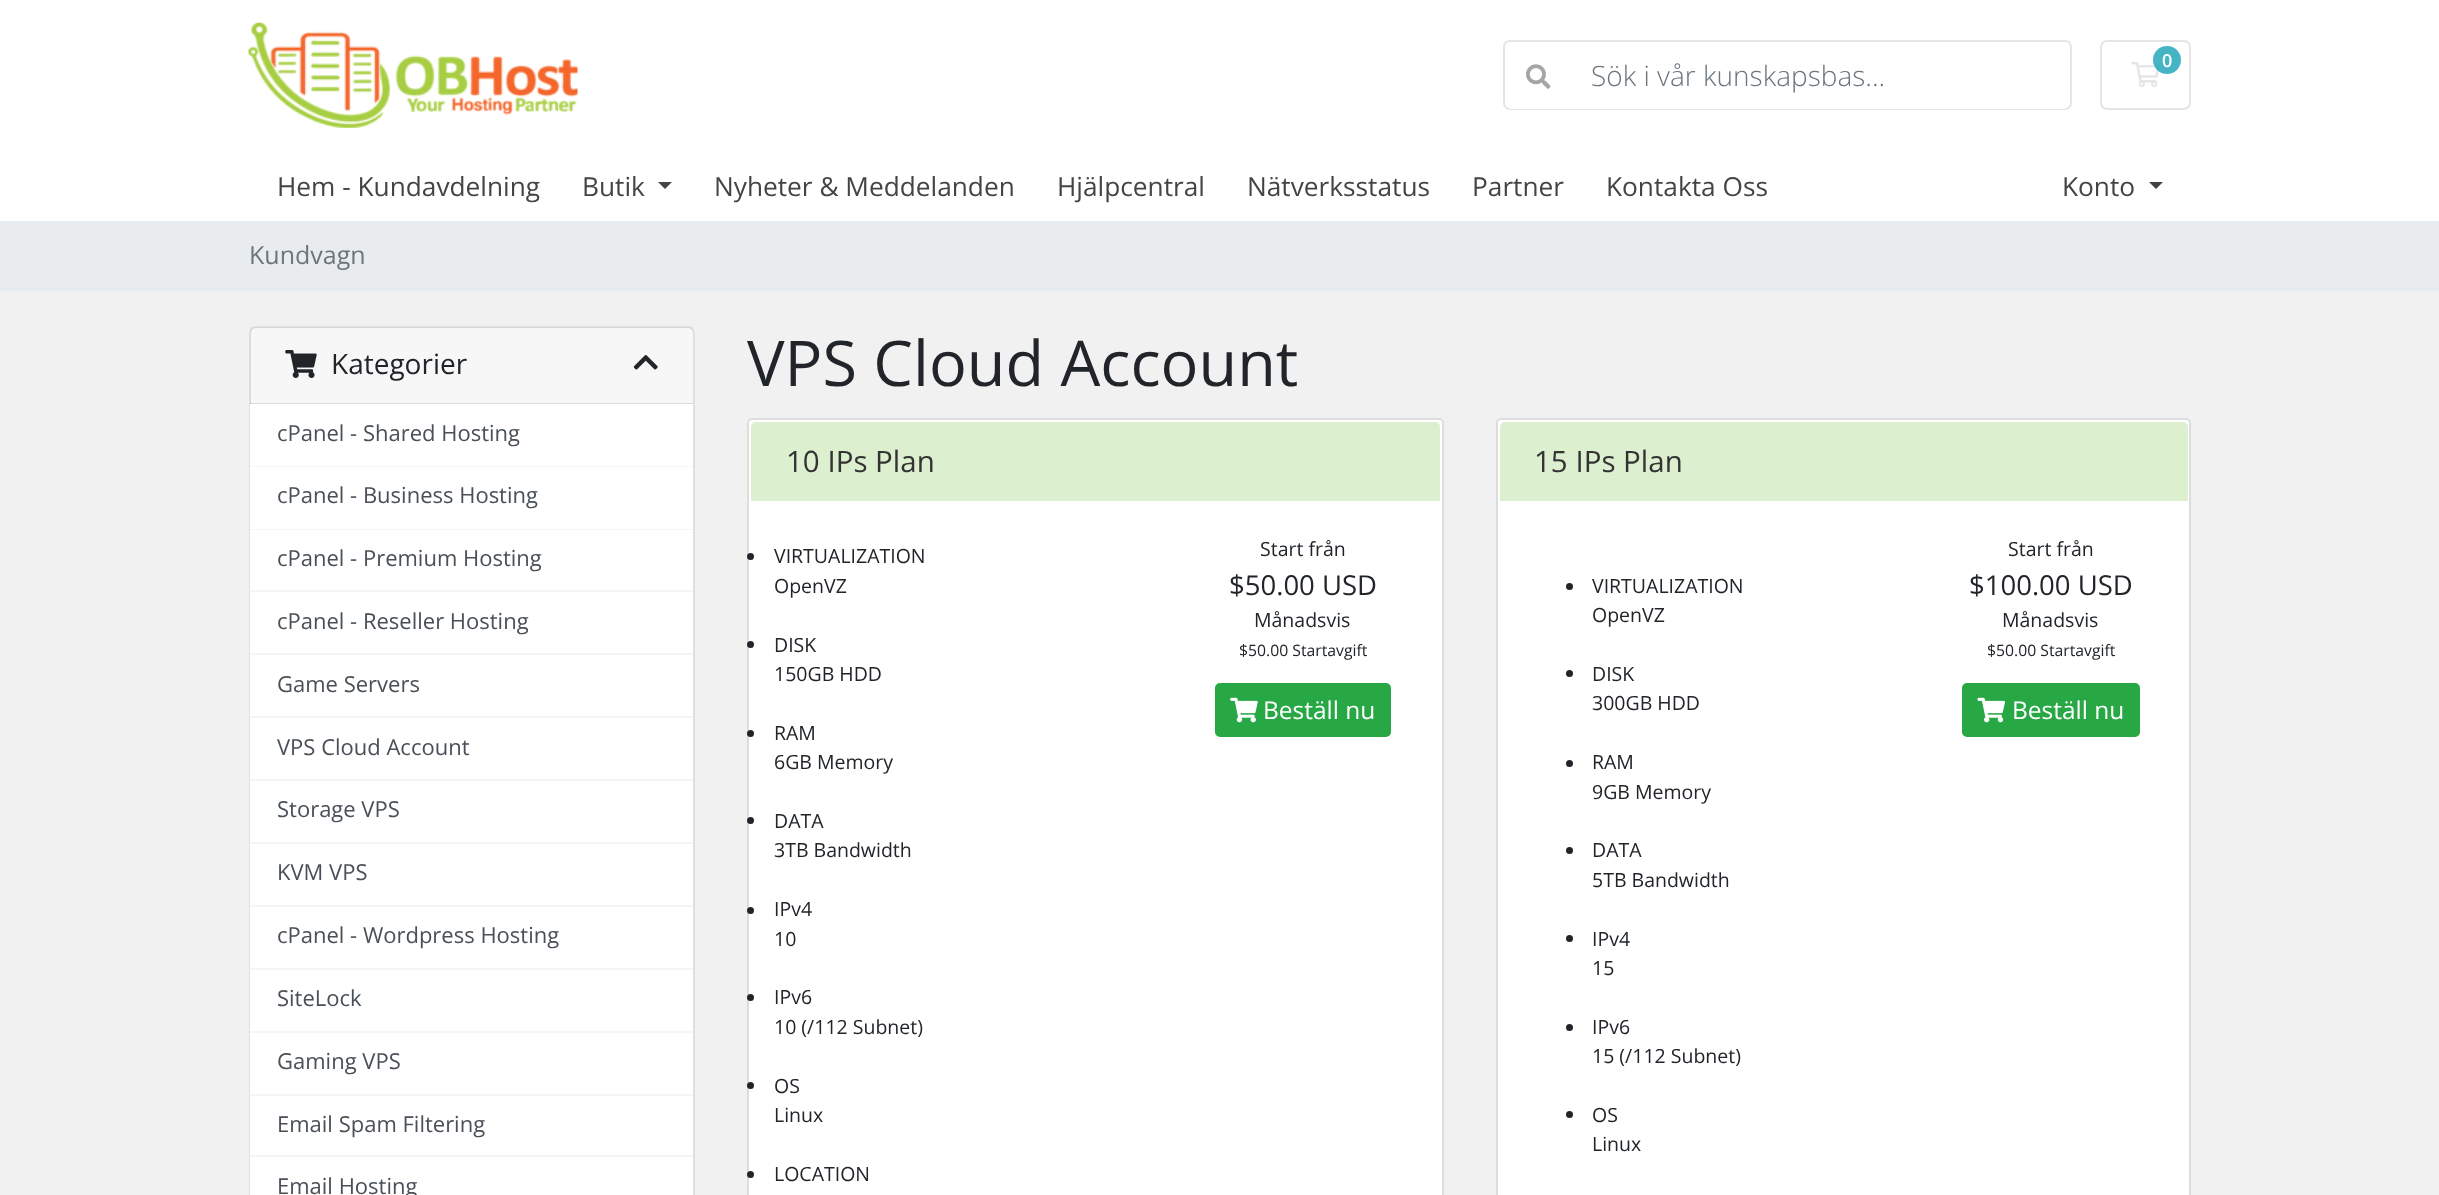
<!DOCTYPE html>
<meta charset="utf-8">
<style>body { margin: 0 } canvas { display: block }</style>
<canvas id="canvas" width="2439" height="1195"></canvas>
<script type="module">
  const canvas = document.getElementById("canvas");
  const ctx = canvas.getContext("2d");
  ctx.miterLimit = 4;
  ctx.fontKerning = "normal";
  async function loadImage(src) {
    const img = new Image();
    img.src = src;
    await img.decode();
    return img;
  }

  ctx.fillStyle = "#f1f1f1";
  ctx.fillRect(0, 0, 2439, 1195);
  ctx.fillStyle = "#ffffff";
  ctx.fillRect(0, 0, 2439, 221);
  ctx.drawImage(await loadImage("img1.png"), 248, 22, 330, 106);
  ctx.beginPath();
  ctx.roundRect(2101, 41, 89, 68, 6);
  ctx.strokeStyle = "#e5e5e5";
  ctx.lineWidth = 2;
  ctx.stroke();
  ctx.drawImage(await loadImage("img2.png"), 2131, 62, 29, 25);
  ctx.fillStyle = "rgba(23, 162, 184, 0.8)";
  ctx.beginPath();
  ctx.arc(2167, 60, 14, 0, Math.PI * 2);
  ctx.fill();
  ctx.font = "600 18px Open Sans";
  ctx.fillStyle = "#ffffff";
  ctx.fillText("0", 2162, 67);
  ctx.beginPath();
  ctx.roundRect(1504, 41, 567, 68, 6);
  ctx.stroke();
  ctx.beginPath();
  ctx.roundRect(1570, 42, 500, 67, [0, 7, 7, 0]);
  ctx.fill();
  ctx.beginPath();
  ctx.roundRect(1505, 42, 67, 67, [7, 0, 0, 7]);
  ctx.fill();
  ctx.drawImage(await loadImage("img3.png"), 1526, 64, 25, 25);
  ctx.font = "300 28px Open Sans";
  ctx.fillStyle = "#6c757d";
  ctx.fillText("Sök i vår kunskapsbas...", 1591, 86);
  ctx.font = "26.25px Open Sans";
  ctx.fillStyle = "#444444";
  ctx.fillText("Hem - Kundavdelning", 277, 196);
  ctx.fillText("Butik", 582, 196);
  ctx.beginPath();
  ctx.moveTo(658, 182);
  ctx.lineTo(672, 182);
  ctx.lineTo(665, 189);
  ctx.closePath();
  ctx.fill();
  ctx.fillText("Nyheter & Meddelanden", 714, 196);
  ctx.fillText("Hjälpcentral", 1057, 196);
  ctx.fillText("Nätverksstatus", 1247, 196);
  ctx.fillText("Partner", 1472, 196);
  ctx.fillText("Kontakta Oss", 1606, 196);
  ctx.fillText("Konto", 2062, 196);
  ctx.beginPath();
  ctx.moveTo(2149, 182);
  ctx.lineTo(2163, 182);
  ctx.lineTo(2156, 189);
  ctx.closePath();
  ctx.fill();
  ctx.fillStyle = "#e9ecef";
  ctx.fillRect(0, 221, 2439, 70);
  ctx.font = "25px Open Sans";
  ctx.fillStyle = "#6c757d";
  ctx.fillText("Kundvagn", 249, 264);
  ctx.fillStyle = "#ffffff";
  ctx.beginPath();
  ctx.roundRect(249, 326, 446, 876, 7);
  ctx.fill();
  ctx.beginPath();
  ctx.roundRect(250, 327, 444, 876, 6);
  ctx.strokeStyle = "rgba(0, 0, 0, 0.12)";
  ctx.stroke();
  ctx.fillStyle = "rgba(0, 0, 0, 0.03)";
  ctx.fillRect(250, 327, 443, 77);
  ctx.fillStyle = "rgba(0, 0, 0, 0.12)";
  ctx.fillRect(250, 403, 443, 1);
  ctx.drawImage(await loadImage("img4.png"), 285, 350, 32, 28);
  ctx.font = "28px Open Sans";
  ctx.fillStyle = "#212529";
  ctx.fillText("Kategorier", 331, 374);
  ctx.drawImage(await loadImage("img5.png"), 633, 355, 25, 15);
  ctx.fillStyle = "#ffffff";
  ctx.fillRect(250, 404, 1, 62);
  ctx.fillStyle = "#f5f5f5";
  ctx.fillRect(250, 466, 443, 1);
  ctx.font = "22px Open Sans";
  ctx.fillStyle = "#495057";
  ctx.fillText("cPanel - Shared Hosting", 277, 441);
  ctx.fillStyle = "#ffffff";
  ctx.fillRect(250, 467, 1, 62);
  ctx.fillStyle = "#f5f5f5";
  ctx.fillRect(250, 529, 443, 1);
  ctx.fillStyle = "#495057";
  ctx.fillText("cPanel - Business Hosting", 277, 503);
  ctx.fillStyle = "#ffffff";
  ctx.fillRect(250, 530, 1, 60);
  ctx.fillStyle = "#f5f5f5";
  ctx.fillRect(250, 590, 443, 2);
  ctx.fillStyle = "#495057";
  ctx.fillText("cPanel - Premium Hosting", 277, 566);
  ctx.fillStyle = "#ffffff";
  ctx.fillRect(250, 592, 1, 61);
  ctx.fillStyle = "#f5f5f5";
  ctx.fillRect(250, 653, 443, 2);
  ctx.fillStyle = "#495057";
  ctx.fillText("cPanel - Reseller Hosting", 277, 629);
  ctx.fillStyle = "#ffffff";
  ctx.fillRect(250, 655, 1, 61);
  ctx.fillStyle = "#f5f5f5";
  ctx.fillRect(250, 716, 443, 2);
  ctx.fillStyle = "#495057";
  ctx.fillText("Game Servers", 277, 692);
  ctx.fillStyle = "#ffffff";
  ctx.fillRect(250, 718, 1, 61);
  ctx.fillStyle = "#f5f5f5";
  ctx.fillRect(250, 779, 443, 2);
  ctx.fillStyle = "#495057";
  ctx.fillText("VPS Cloud Account", 277, 755);
  ctx.fillStyle = "#ffffff";
  ctx.fillRect(250, 781, 1, 61);
  ctx.fillStyle = "#f5f5f5";
  ctx.fillRect(250, 842, 443, 2);
  ctx.fillStyle = "#495057";
  ctx.fillText("Storage VPS", 277, 817);
  ctx.fillStyle = "#ffffff";
  ctx.fillRect(250, 844, 1, 61);
  ctx.fillStyle = "#f5f5f5";
  ctx.fillRect(250, 905, 443, 2);
  ctx.fillStyle = "#495057";
  ctx.fillText("KVM VPS", 277, 880);
  ctx.fillStyle = "#ffffff";
  ctx.fillRect(250, 907, 1, 61);
  ctx.fillStyle = "#f5f5f5";
  ctx.fillRect(250, 968, 443, 2);
  ctx.fillStyle = "#495057";
  ctx.fillText("cPanel - Wordpress Hosting", 277, 943);
  ctx.fillStyle = "#ffffff";
  ctx.fillRect(250, 970, 1, 61);
  ctx.fillStyle = "#f5f5f5";
  ctx.fillRect(250, 1031, 443, 2);
  ctx.fillStyle = "#495057";
  ctx.fillText("SiteLock", 277, 1006);
  ctx.fillStyle = "#ffffff";
  ctx.fillRect(250, 1033, 1, 61);
  ctx.fillStyle = "#f5f5f5";
  ctx.fillRect(250, 1094, 443, 2);
  ctx.fillStyle = "#495057";
  ctx.fillText("Gaming VPS", 277, 1069);
  ctx.fillStyle = "#ffffff";
  ctx.fillRect(250, 1096, 1, 59);
  ctx.fillStyle = "#f5f5f5";
  ctx.fillRect(250, 1155, 443, 2);
  ctx.fillStyle = "#495057";
  ctx.fillText("Email Spam Filtering", 277, 1132);
  ctx.fillStyle = "#ffffff";
  ctx.fillRect(250, 1157, 1, 38);
  ctx.fillStyle = "#495057";
  ctx.fillText("Email Hosting", 277, 1194);
  ctx.font = "63px Open Sans";
  ctx.fillStyle = "#212529";
  ctx.fillText("VPS Cloud Account", 747, 386);
  ctx.fillStyle = "#ffffff";
  ctx.beginPath();
  ctx.roundRect(748, 419, 695, 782, 4);
  ctx.fill();
  ctx.strokeStyle = "#dddddd";
  ctx.stroke();
  ctx.fillStyle = "#dcefce";
  ctx.beginPath();
  ctx.roundRect(751, 422, 689, 79, [5, 5, 0, 0]);
  ctx.fill();
  ctx.font = "29.5px Open Sans";
  ctx.fillStyle = "#333333";
  ctx.fillText("10 IPs Plan", 786, 472);
  ctx.fillStyle = "#212529";
  ctx.beginPath();
  ctx.arc(750.5, 556.5, 3.5, 0, Math.PI * 2);
  ctx.fill();
  ctx.font = "19.5px Open Sans";
  ctx.fillText("VIRTUALIZATION", 774, 563);
  ctx.fillText("OpenVZ", 774, 593);
  ctx.beginPath();
  ctx.arc(750.5, 644.5, 3.5, 0, Math.PI * 2);
  ctx.fill();
  ctx.fillText("DISK", 774, 652);
  ctx.fillText("150GB HDD", 774, 681);
  ctx.beginPath();
  ctx.arc(750.5, 733.5, 3.5, 0, Math.PI * 2);
  ctx.fill();
  ctx.fillText("RAM", 774, 740);
  ctx.fillText("6GB Memory", 774, 769);
  ctx.beginPath();
  ctx.arc(750.5, 820.5, 3.5, 0, Math.PI * 2);
  ctx.fill();
  ctx.fillText("DATA", 774, 828);
  ctx.fillText("3TB Bandwidth", 774, 857);
  ctx.beginPath();
  ctx.arc(750.5, 910.5, 3.5, 0, Math.PI * 2);
  ctx.fill();
  ctx.fillText("IPv4", 774, 916);
  ctx.fillText("10", 774, 946);
  ctx.beginPath();
  ctx.arc(750.5, 997.5, 3.5, 0, Math.PI * 2);
  ctx.fill();
  ctx.fillText("IPv6", 774, 1004);
  ctx.fillText("10 (/112 Subnet)", 774, 1034);
  ctx.beginPath();
  ctx.arc(750.5, 1085.5, 3.5, 0, Math.PI * 2);
  ctx.fill();
  ctx.fillText("OS", 774, 1093);
  ctx.fillText("Linux", 774, 1122);
  ctx.beginPath();
  ctx.arc(750.5, 1174.5, 3.5, 0, Math.PI * 2);
  ctx.fill();
  ctx.fillText("LOCATION", 774, 1181);
  ctx.fillText("Start från", 1260, 556);
  ctx.font = "27.5px Open Sans";
  ctx.fillText("$50.00 USD", 1229, 595);
  ctx.font = "19.5px Open Sans";
  ctx.fillText("Månadsvis", 1254, 627);
  ctx.font = "15.75px Open Sans";
  ctx.fillText("$50.00 Startavgift", 1239, 656);
  ctx.fillStyle = "#28a745";
  ctx.beginPath();
  ctx.roundRect(1216, 684, 174, 52, 4);
  ctx.fill();
  ctx.strokeStyle = "#28a745";
  ctx.stroke();
  ctx.drawImage(await loadImage("img6.png"), 1230, 697, 28, 26);
  ctx.font = "24.5px Open Sans";
  ctx.fillStyle = "#ffffff";
  ctx.fillText("Beställ nu", 1263, 719);
  ctx.beginPath();
  ctx.roundRect(1497, 419, 693, 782, 4);
  ctx.fill();
  ctx.strokeStyle = "#dddddd";
  ctx.stroke();
  ctx.fillStyle = "#dcefce";
  ctx.beginPath();
  ctx.roundRect(1500, 422, 688, 79, [5, 5, 0, 0]);
  ctx.fill();
  ctx.font = "29.5px Open Sans";
  ctx.fillStyle = "#333333";
  ctx.fillText("15 IPs Plan", 1534, 472);
  ctx.fillStyle = "#212529";
  ctx.beginPath();
  ctx.arc(1569.5, 586.5, 3.5, 0, Math.PI * 2);
  ctx.fill();
  ctx.font = "19.5px Open Sans";
  ctx.fillText("VIRTUALIZATION", 1592, 593);
  ctx.fillText("OpenVZ", 1592, 622);
  ctx.beginPath();
  ctx.arc(1569.5, 673.5, 3.5, 0, Math.PI * 2);
  ctx.fill();
  ctx.fillText("DISK", 1592, 681);
  ctx.fillText("300GB HDD", 1592, 710);
  ctx.beginPath();
  ctx.arc(1569.5, 763.5, 3.5, 0, Math.PI * 2);
  ctx.fill();
  ctx.fillText("RAM", 1592, 769);
  ctx.fillText("9GB Memory", 1592, 799);
  ctx.beginPath();
  ctx.arc(1569.5, 850.5, 3.5, 0, Math.PI * 2);
  ctx.fill();
  ctx.fillText("DATA", 1592, 857);
  ctx.fillText("5TB Bandwidth", 1592, 887);
  ctx.beginPath();
  ctx.arc(1569.5, 938.5, 3.5, 0, Math.PI * 2);
  ctx.fill();
  ctx.fillText("IPv4", 1592, 946);
  ctx.fillText("15", 1592, 975);
  ctx.beginPath();
  ctx.arc(1569.5, 1027.5, 3.5, 0, Math.PI * 2);
  ctx.fill();
  ctx.fillText("IPv6", 1592, 1034);
  ctx.fillText("15 (/112 Subnet)", 1592, 1063);
  ctx.beginPath();
  ctx.arc(1569.5, 1114.5, 3.5, 0, Math.PI * 2);
  ctx.fill();
  ctx.fillText("OS", 1592, 1122);
  ctx.fillText("Linux", 1592, 1151);
  ctx.fillText("Start från", 2008, 556);
  ctx.font = "27.5px Open Sans";
  ctx.fillText("$100.00 USD", 1969, 595);
  ctx.font = "19.5px Open Sans";
  ctx.fillText("Månadsvis", 2002, 627);
  ctx.font = "15.75px Open Sans";
  ctx.fillText("$50.00 Startavgift", 1987, 656);
  ctx.fillStyle = "#28a745";
  ctx.beginPath();
  ctx.roundRect(1963, 684, 176, 52, 4);
  ctx.fill();
  ctx.strokeStyle = "#28a745";
  ctx.stroke();
  ctx.drawImage(await loadImage("img7.png"), 1977, 697, 28, 26);
  ctx.font = "24.5px Open Sans";
  ctx.fillStyle = "#ffffff";
  ctx.fillText("Beställ nu", 2012, 719);
</script>
